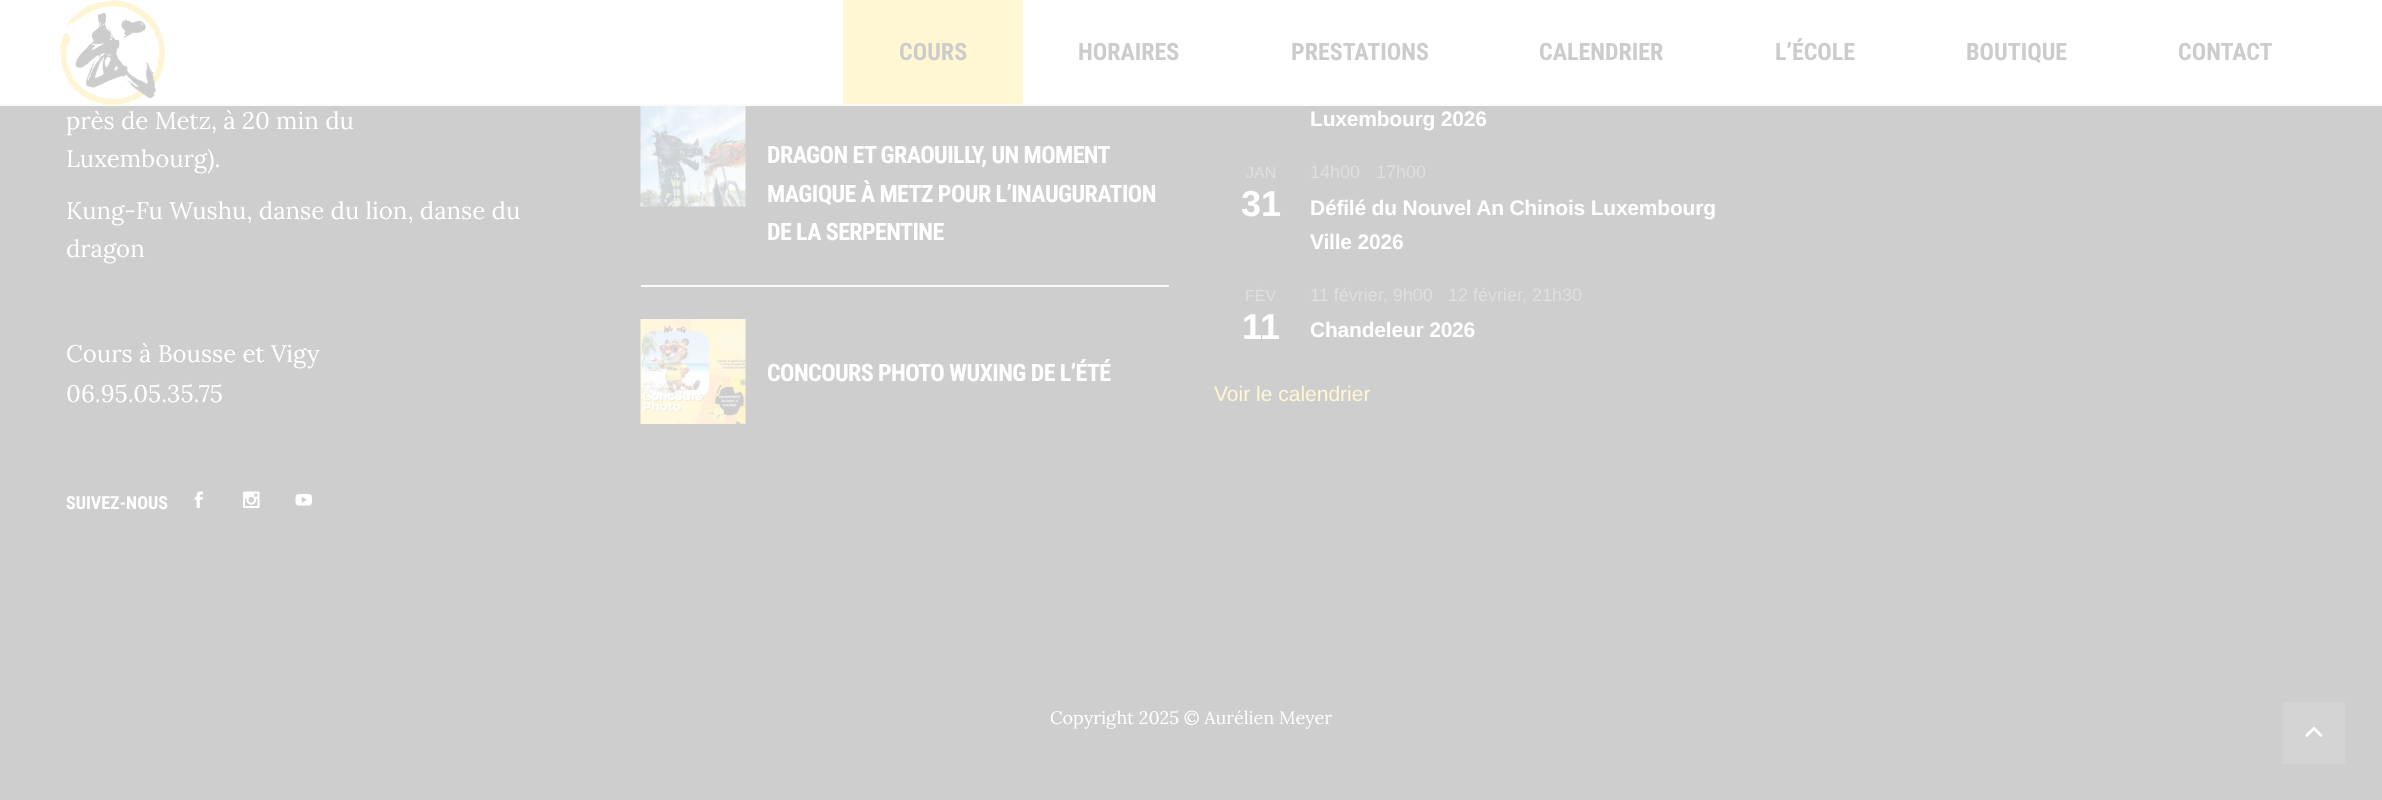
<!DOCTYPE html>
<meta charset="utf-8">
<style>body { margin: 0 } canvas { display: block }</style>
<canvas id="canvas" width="2382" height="800"></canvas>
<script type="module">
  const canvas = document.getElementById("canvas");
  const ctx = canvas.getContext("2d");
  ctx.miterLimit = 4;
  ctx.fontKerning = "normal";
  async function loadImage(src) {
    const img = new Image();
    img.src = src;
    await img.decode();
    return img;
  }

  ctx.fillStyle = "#cecece";
  ctx.fillRect(0, 0, 2382, 800);
  ctx.fillStyle = "#ffffff";
  ctx.fillRect(0, 0, 2382, 104);
  ctx.fillStyle = "#fbfbfb";
  ctx.fillRect(0, 104, 2382, 2);
  ctx.drawImage(await loadImage("img1.png"), 60, 0, 105, 105);
  ctx.fillStyle = "#fff7d2";
  ctx.fillRect(843, 0, 180, 104);
  ctx.font = "bold 24px Roboto Condensed";
  ctx.fillStyle = "#cccccc";
  ctx.fillText("L’ÉCOLE", 1775, 60);
  ctx.fillText("COURS", 899, 60);
  ctx.fillText("HORAIRES", 1078, 60);
  ctx.fillText("PRESTATIONS", 1291, 60);
  ctx.fillText("CALENDRIER", 1539, 60);
  ctx.fillText("BOUTIQUE", 1966, 60);
  ctx.fillText("CONTACT", 2178, 60);
  ctx.font = "24px Lora";
  ctx.fillStyle = "#ffffff";
  ctx.fillText("près de Metz, à 20 min du", 66, 129);
  ctx.fillText("Luxembourg).", 66, 167);
  ctx.fillText("Kung-Fu Wushu, danse du lion, danse du", 66, 219);
  ctx.fillText("dragon", 66, 257);
  ctx.fillText("Cours à Bousse et Vigy", 66, 362);
  ctx.fillText("06.95.05.35.75", 66, 402);
  ctx.font = "bold 18px Roboto Condensed";
  ctx.fillText("SUIVEZ-NOUS", 66, 509);
  ctx.drawImage(await loadImage("img2.png"), 194, 491, 9, 17);
  ctx.drawImage(await loadImage("img3.png"), 243, 491, 17, 17);
  ctx.drawImage(await loadImage("img4.png"), 295, 493, 17, 13);
  ctx.fillStyle = "#fafafa";
  ctx.fillRect(641, 285, 528, 2);
  ctx.drawImage(await loadImage("img5.png"), 640, 106, 106, 101);
  ctx.letterSpacing = "-0.6px";
  ctx.font = "bold 24px Roboto Condensed";
  ctx.fillStyle = "#ffffff";
  ctx.fillText("DRAGON ET GRAOUILLY, UN MOMENT", 767, 163);
  ctx.fillText("MAGIQUE À METZ POUR L’INAUGURATION", 767, 202);
  ctx.fillText("DE LA SERPENTINE", 767, 240);
  ctx.drawImage(await loadImage("img6.png"), 640, 319, 106, 105);
  ctx.fillText("CONCOURS PHOTO WUXING DE L’ÉTÉ", 767, 381);
  ctx.letterSpacing = "-0.2px";
  ctx.font = "bold 21px Liberation Sans";
  ctx.fillText("Luxembourg 2026", 1310, 126);
  ctx.letterSpacing = "0px";
  ctx.font = "16px Liberation Sans";
  ctx.fillStyle = "#dfdfdf";
  ctx.fillText("JAN", 1246, 178);
  ctx.font = "bold 36px Liberation Sans";
  ctx.fillStyle = "#ffffff";
  ctx.fillText("31", 1241, 216);
  ctx.font = "18px Liberation Sans";
  ctx.fillStyle = "#dfdfdf";
  ctx.fillText("14h00", 1310, 178);
  ctx.fillText("17h00", 1376, 178);
  ctx.letterSpacing = "-0.2px";
  ctx.font = "bold 21px Liberation Sans";
  ctx.fillStyle = "#ffffff";
  ctx.fillText("Défilé du Nouvel An Chinois Luxembourg", 1310, 215);
  ctx.fillText("Ville 2026", 1310, 249);
  ctx.letterSpacing = "0px";
  ctx.font = "16px Liberation Sans";
  ctx.fillStyle = "#dfdfdf";
  ctx.fillText("FÉV", 1245, 301);
  ctx.font = "bold 36px Liberation Sans";
  ctx.fillStyle = "#ffffff";
  ctx.fillText("11", 1242, 339);
  ctx.font = "18px Liberation Sans";
  ctx.fillStyle = "#dfdfdf";
  ctx.fillText("11 février, 9h00", 1310, 301);
  ctx.fillText("12 février, 21h30", 1448, 301);
  ctx.letterSpacing = "-0.2px";
  ctx.font = "bold 21px Liberation Sans";
  ctx.fillStyle = "#ffffff";
  ctx.fillText("Chandeleur 2026", 1310, 337);
  ctx.letterSpacing = "0px";
  ctx.font = "21px Liberation Sans";
  ctx.fillStyle = "#fff7d2";
  ctx.fillText("Voir le calendrier", 1214, 401);
  ctx.font = "18px Lora";
  ctx.fillStyle = "#ffffff";
  ctx.fillText("Copyright 2025 © Aurélien Meyer", 1050, 724);
  ctx.fillStyle = "#d4d4d4";
  ctx.fillRect(2283, 702, 62, 62);
  ctx.drawImage(await loadImage("img7.png"), 2305, 727, 18, 10);
</script>
